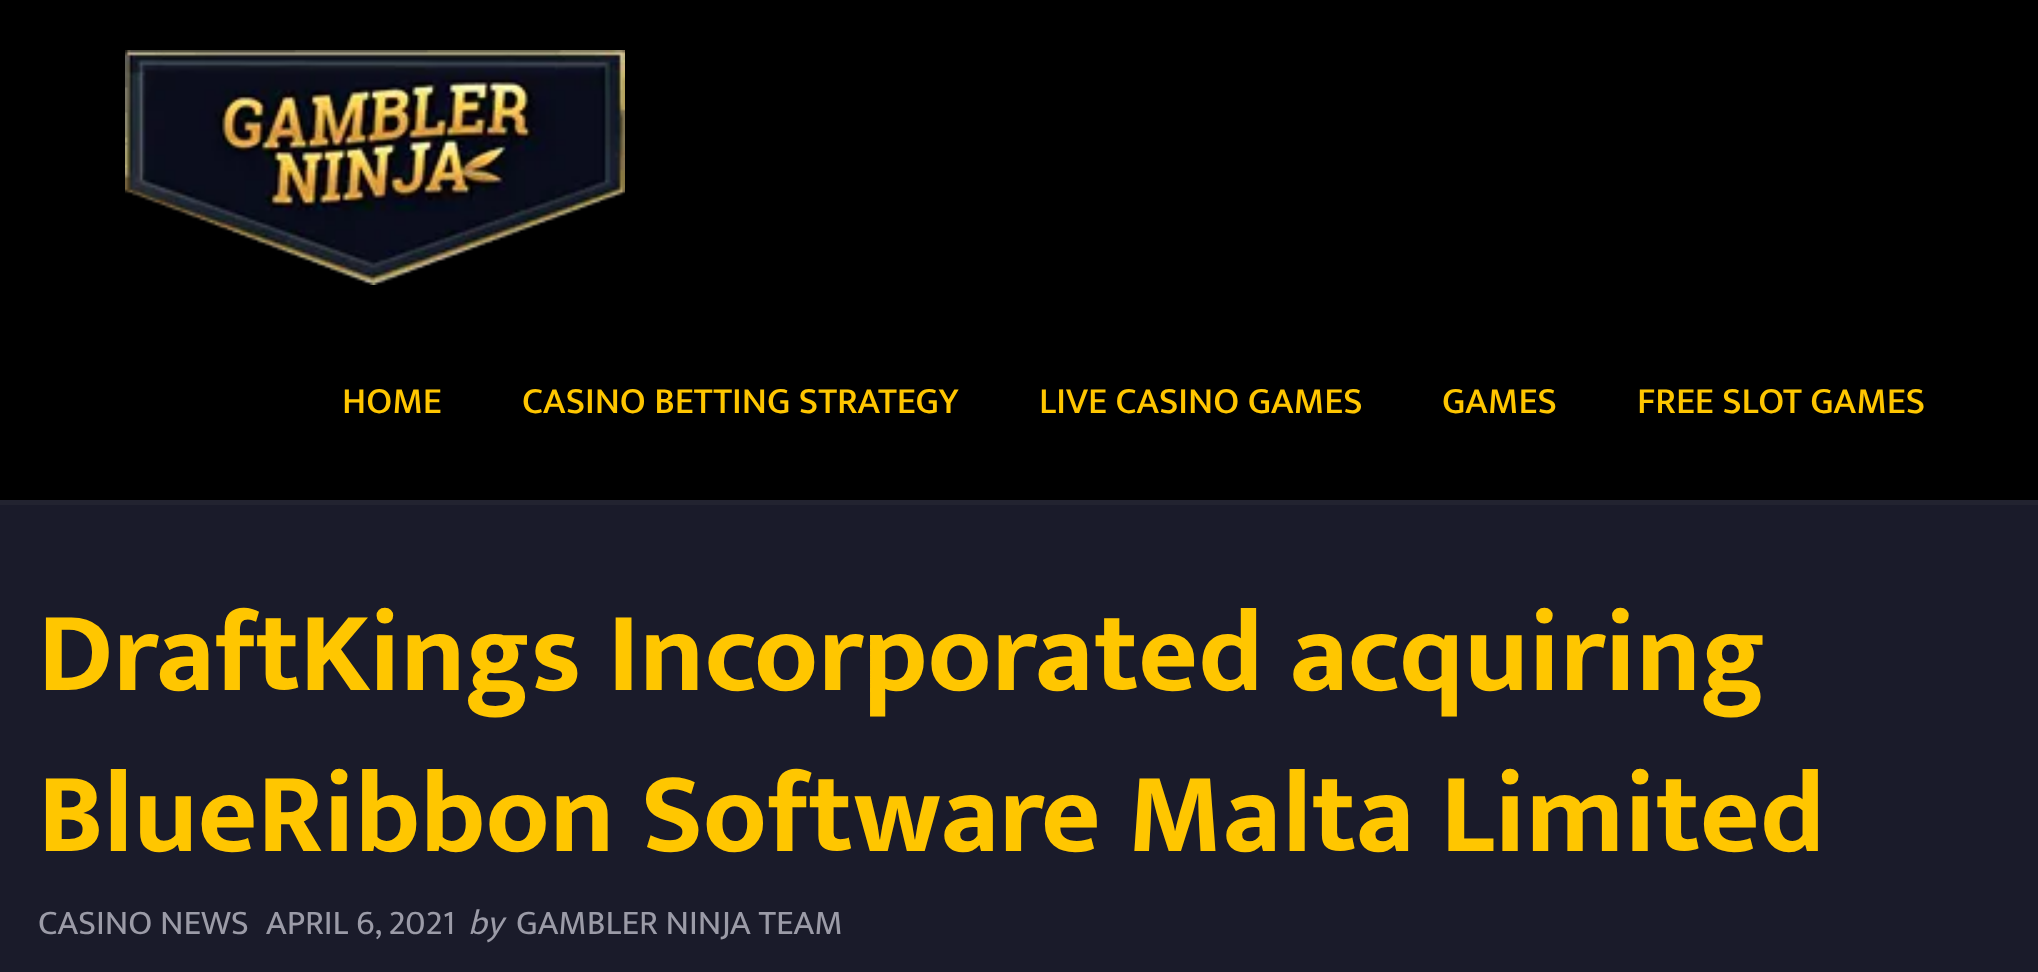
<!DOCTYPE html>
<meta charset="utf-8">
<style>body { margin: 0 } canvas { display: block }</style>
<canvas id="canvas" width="2038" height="972"></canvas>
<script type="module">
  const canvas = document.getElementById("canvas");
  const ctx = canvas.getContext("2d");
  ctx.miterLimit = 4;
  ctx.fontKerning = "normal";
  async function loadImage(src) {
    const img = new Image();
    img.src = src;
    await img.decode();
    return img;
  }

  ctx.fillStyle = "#1a1b2a";
  ctx.fillRect(0, 0, 2038, 972);
  ctx.fillStyle = "#222330";
  ctx.fillRect(0, 500, 2038, 5);
  ctx.fillStyle = "#000000";
  ctx.fillRect(0, 0, 2038, 500);
  ctx.drawImage(await loadImage("img1.png"), 125, 50, 500, 235);
  ctx.font = "500 37.5px Ek Mukta";
  ctx.fillStyle = "#ffc600";
  ctx.fillText("HOME", 342, 413);
  ctx.fillText("CASINO BETTING STRATEGY", 522, 413);
  ctx.fillText("LIVE CASINO GAMES", 1039, 413);
  ctx.fillText("GAMES", 1442, 413);
  ctx.fillText("FREE SLOT GAMES", 1637, 413);
  ctx.font = "bold 115px Ek Mukta";
  ctx.fillText("DraftKings Incorporated acquiring", 38, 690);
  ctx.fillText("BlueRibbon Software Malta Limited", 38, 851);
  ctx.font = "35px Ek Mukta";
  ctx.fillStyle = "#9b9ba7";
  ctx.fillText("CASINO NEWS", 38, 934);
  ctx.fillText("APRIL 6, 2021", 266, 934);
  ctx.font = "italic 35px Ek Mukta";
  ctx.fillText("by", 468, 934);
  ctx.font = "35px Ek Mukta";
  ctx.fillText("GAMBLER NINJA TEAM", 516, 934);
</script>
